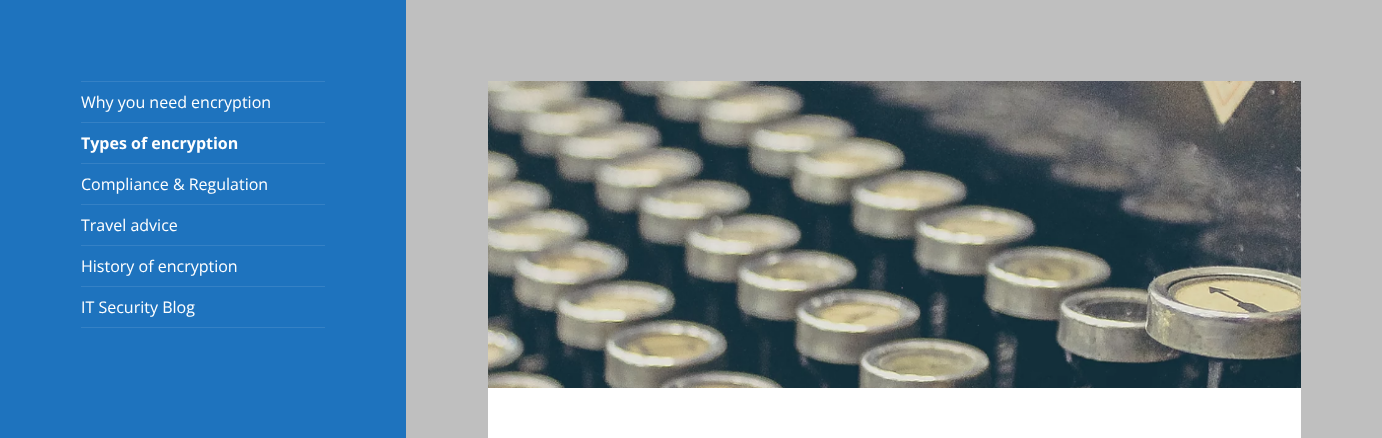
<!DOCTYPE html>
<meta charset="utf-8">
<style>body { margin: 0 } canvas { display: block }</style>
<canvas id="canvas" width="1382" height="438"></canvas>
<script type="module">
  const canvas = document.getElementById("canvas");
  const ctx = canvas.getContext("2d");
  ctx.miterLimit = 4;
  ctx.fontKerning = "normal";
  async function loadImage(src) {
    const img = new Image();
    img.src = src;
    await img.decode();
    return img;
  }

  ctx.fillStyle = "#bfbfbf";
  ctx.fillRect(0, 0, 1382, 438);
  ctx.fillStyle = "#1e73be";
  ctx.fillRect(0, 0, 406, 438);
  ctx.fillStyle = "#3581c5";
  ctx.fillRect(81, 81, 244, 1);
  ctx.fillRect(81, 327, 244, 1);
  ctx.font = "16px Open Sans";
  ctx.fillStyle = "#ffffff";
  ctx.fillText("Why you need encryption", 81, 108);
  ctx.fillStyle = "#3581c5";
  ctx.fillRect(81, 122, 244, 1);
  ctx.font = "bold 16px Open Sans";
  ctx.fillStyle = "#ffffff";
  ctx.fillText("Types of encryption", 81, 149);
  ctx.fillStyle = "#3581c5";
  ctx.fillRect(81, 163, 244, 1);
  ctx.font = "16px Open Sans";
  ctx.fillStyle = "#ffffff";
  ctx.fillText("Compliance & Regulation", 81, 190);
  ctx.fillStyle = "#3581c5";
  ctx.fillRect(81, 204, 244, 1);
  ctx.fillStyle = "#ffffff";
  ctx.fillText("Travel advice", 81, 231);
  ctx.fillStyle = "#3581c5";
  ctx.fillRect(81, 245, 244, 1);
  ctx.fillStyle = "#ffffff";
  ctx.fillText("History of encryption", 81, 272);
  ctx.fillStyle = "#3581c5";
  ctx.fillRect(81, 286, 244, 1);
  ctx.fillStyle = "#ffffff";
  ctx.fillText("IT Security Blog", 81, 313);
  ctx.fillRect(488, 388, 813, 50);
  ctx.drawImage(await loadImage("img1.png"), 488, 81, 813, 307);
</script>
